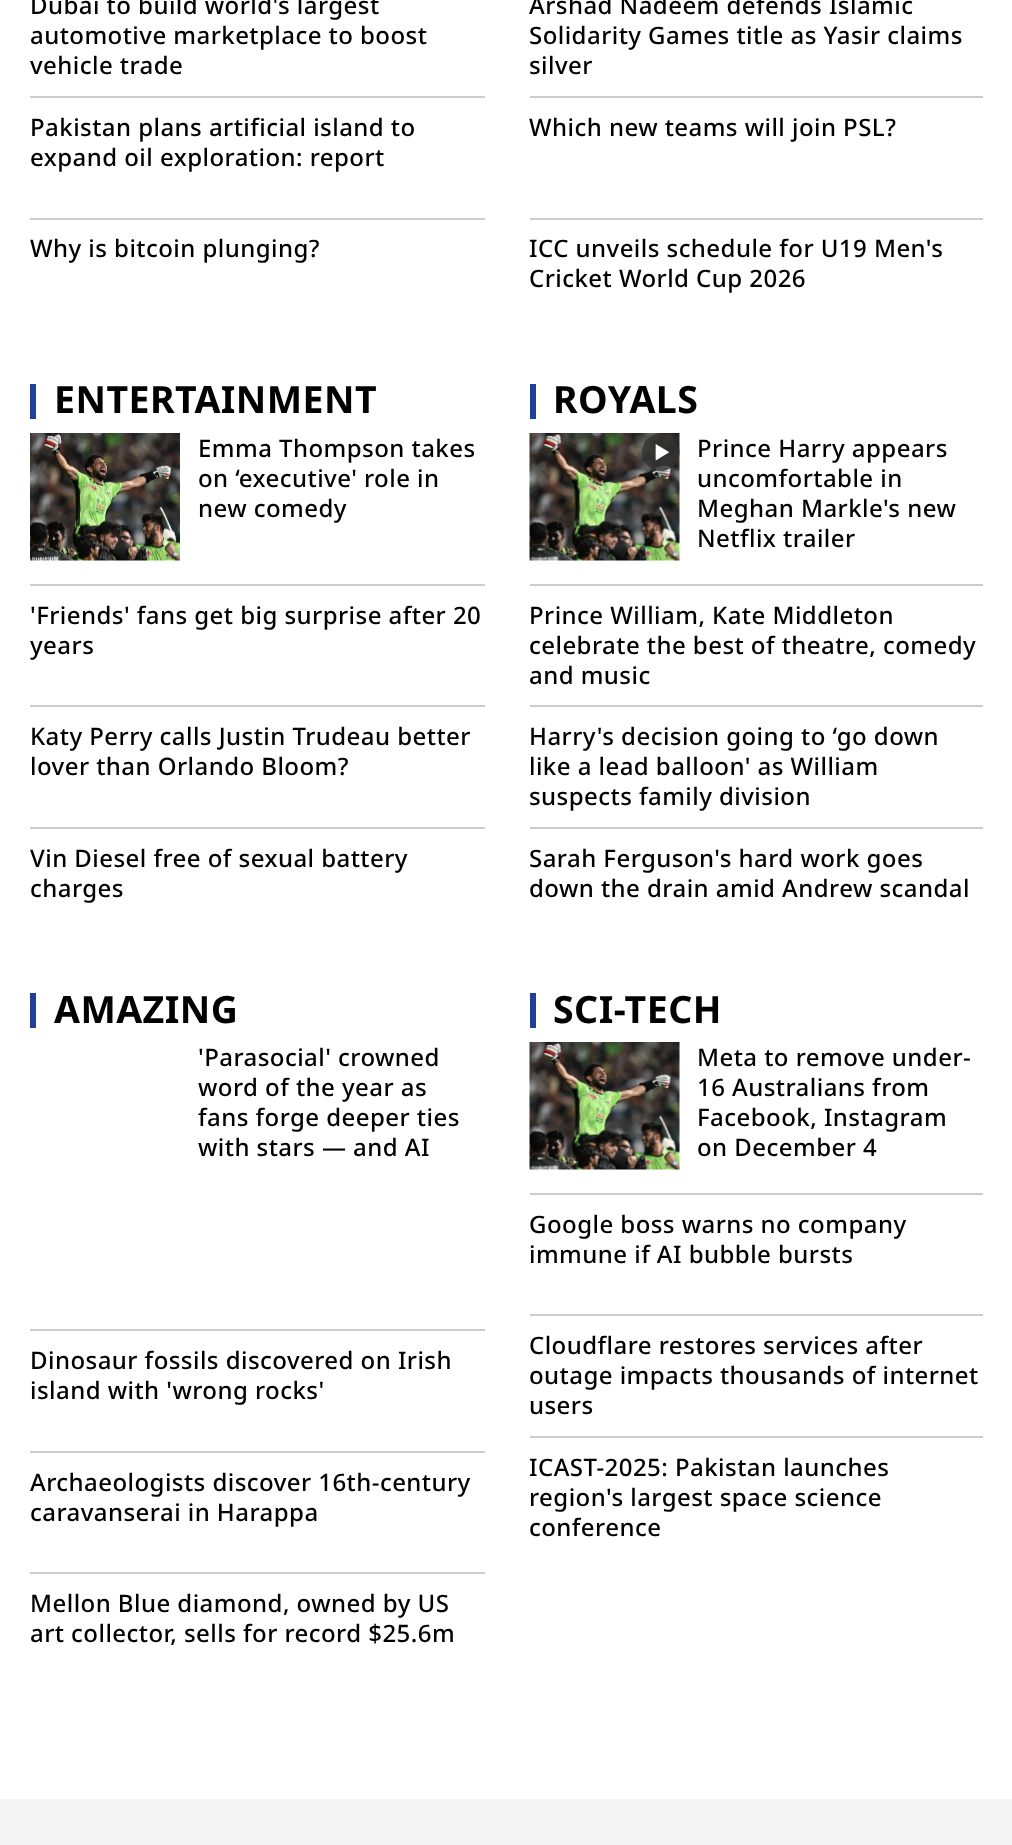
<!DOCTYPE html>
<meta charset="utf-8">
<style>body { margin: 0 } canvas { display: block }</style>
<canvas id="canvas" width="1012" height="1845"></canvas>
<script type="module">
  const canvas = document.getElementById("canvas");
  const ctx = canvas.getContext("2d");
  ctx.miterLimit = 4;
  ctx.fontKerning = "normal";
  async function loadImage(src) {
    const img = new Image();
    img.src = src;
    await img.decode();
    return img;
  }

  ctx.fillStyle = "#ffffff";
  ctx.fillRect(0, 0, 1012, 1845);
  ctx.letterSpacing = "0.45px";
  ctx.font = "500 24px Noto Sans";
  ctx.fillStyle = "#000000";
  ctx.fillText("Dubai to build world's largest", 30, 14);
  ctx.fillText("automotive marketplace to boost", 30, 44);
  ctx.fillText("vehicle trade", 30, 74);
  ctx.fillStyle = "#cccccc";
  ctx.fillRect(30, 96, 455, 2);
  ctx.fillStyle = "#000000";
  ctx.fillText("Pakistan plans artificial island to", 30, 136);
  ctx.fillText("expand oil exploration: report", 30, 166);
  ctx.fillStyle = "#cccccc";
  ctx.fillRect(30, 218, 455, 2);
  ctx.fillStyle = "#000000";
  ctx.fillText("Why is bitcoin plunging?", 30, 257);
  ctx.fillText("Arshad Nadeem defends Islamic", 529, 14);
  ctx.fillText("Solidarity Games title as Yasir claims", 529, 44);
  ctx.fillText("silver", 529, 74);
  ctx.fillStyle = "#cccccc";
  ctx.fillRect(530, 96, 453, 2);
  ctx.fillStyle = "#000000";
  ctx.fillText("Which new teams will join PSL?", 529, 136);
  ctx.fillStyle = "#cccccc";
  ctx.fillRect(530, 218, 453, 2);
  ctx.fillStyle = "#000000";
  ctx.fillText("ICC unveils schedule for U19 Men's", 529, 257);
  ctx.fillText("Cricket World Cup 2026", 529, 287);
  ctx.fillStyle = "#21409a";
  ctx.fillRect(30, 384, 6, 35);
  ctx.font = "bold 37.5px Noto Sans";
  ctx.fillStyle = "#000000";
  ctx.fillText("ENTERTAINMENT", 54, 413);
  ctx.drawImage(await loadImage("img1.png"), 30, 433, 150, 128);
  ctx.font = "500 24px Noto Sans";
  ctx.fillText("Emma Thompson takes", 198, 457);
  ctx.fillText("on ‘executive' role in", 198, 487);
  ctx.fillText("new comedy", 198, 517);
  ctx.fillStyle = "#cccccc";
  ctx.fillRect(30, 584, 455, 2);
  ctx.fillStyle = "#000000";
  ctx.fillText("'Friends' fans get big surprise after 20", 30, 624);
  ctx.fillText("years", 30, 654);
  ctx.fillStyle = "#cccccc";
  ctx.fillRect(30, 705, 455, 2);
  ctx.fillStyle = "#000000";
  ctx.fillText("Katy Perry calls Justin Trudeau better", 30, 745);
  ctx.fillText("lover than Orlando Bloom?", 30, 775);
  ctx.fillStyle = "#cccccc";
  ctx.fillRect(30, 827, 455, 2);
  ctx.fillStyle = "#000000";
  ctx.fillText("Vin Diesel free of sexual battery", 30, 867);
  ctx.fillText("charges", 30, 897);
  ctx.fillStyle = "#21409a";
  ctx.fillRect(530, 384, 6, 35);
  ctx.font = "bold 37.5px Noto Sans";
  ctx.fillStyle = "#000000";
  ctx.fillText("ROYALS", 553, 413);
  ctx.drawImage(await loadImage("img2.png"), 529, 433, 151, 128);
  ctx.drawImage(await loadImage("img3.png"), 642, 434, 38, 37);
  ctx.font = "500 24px Noto Sans";
  ctx.fillText("Prince Harry appears", 697, 457);
  ctx.fillText("uncomfortable in", 697, 487);
  ctx.fillText("Meghan Markle's new", 697, 517);
  ctx.fillText("Netflix trailer", 697, 547);
  ctx.fillStyle = "#cccccc";
  ctx.fillRect(530, 584, 453, 2);
  ctx.fillStyle = "#000000";
  ctx.fillText("Prince William, Kate Middleton", 529, 624);
  ctx.fillText("celebrate the best of theatre, comedy", 529, 654);
  ctx.fillText("and music", 529, 684);
  ctx.fillStyle = "#cccccc";
  ctx.fillRect(530, 705, 453, 2);
  ctx.fillStyle = "#000000";
  ctx.fillText("Harry's decision going to ‘go down", 529, 745);
  ctx.fillText("like a lead balloon' as William", 529, 775);
  ctx.fillText("suspects family division", 529, 805);
  ctx.fillStyle = "#cccccc";
  ctx.fillRect(530, 827, 453, 2);
  ctx.fillStyle = "#000000";
  ctx.fillText("Sarah Ferguson's hard work goes", 529, 867);
  ctx.fillText("down the drain amid Andrew scandal", 529, 897);
  ctx.fillStyle = "#21409a";
  ctx.fillRect(30, 993, 6, 35);
  ctx.font = "bold 37.5px Noto Sans";
  ctx.fillStyle = "#000000";
  ctx.fillText("AMAZING", 54, 1023);
  ctx.font = "500 24px Noto Sans";
  ctx.fillText("'Parasocial' crowned", 198, 1066);
  ctx.fillText("word of the year as", 198, 1096);
  ctx.fillText("fans forge deeper ties", 198, 1126);
  ctx.fillText("with stars — and AI", 198, 1156);
  ctx.fillStyle = "#cccccc";
  ctx.fillRect(30, 1329, 455, 2);
  ctx.fillStyle = "#000000";
  ctx.fillText("Dinosaur fossils discovered on Irish", 30, 1369);
  ctx.fillText("island with 'wrong rocks'", 30, 1399);
  ctx.fillStyle = "#cccccc";
  ctx.fillRect(30, 1451, 455, 2);
  ctx.fillStyle = "#000000";
  ctx.fillText("Archaeologists discover 16th-century", 30, 1491);
  ctx.fillText("caravanserai in Harappa", 30, 1521);
  ctx.fillStyle = "#cccccc";
  ctx.fillRect(30, 1572, 455, 2);
  ctx.fillStyle = "#000000";
  ctx.fillText("Mellon Blue diamond, owned by US", 30, 1612);
  ctx.fillText("art collector, sells for record $25.6m", 30, 1642);
  ctx.fillStyle = "#21409a";
  ctx.fillRect(530, 993, 6, 35);
  ctx.font = "bold 37.5px Noto Sans";
  ctx.fillStyle = "#000000";
  ctx.fillText("SCI-TECH", 553, 1023);
  ctx.drawImage(await loadImage("img2.png"), 529, 1042, 151, 128);
  ctx.font = "500 24px Noto Sans";
  ctx.fillText("Meta to remove under-", 697, 1066);
  ctx.fillText("16 Australians from", 697, 1096);
  ctx.fillText("Facebook, Instagram", 697, 1126);
  ctx.fillText("on December 4", 697, 1156);
  ctx.fillStyle = "#cccccc";
  ctx.fillRect(530, 1193, 453, 2);
  ctx.fillStyle = "#000000";
  ctx.fillText("Google boss warns no company", 529, 1233);
  ctx.fillText("immune if AI bubble bursts", 529, 1263);
  ctx.fillStyle = "#cccccc";
  ctx.fillRect(530, 1314, 453, 2);
  ctx.fillStyle = "#000000";
  ctx.fillText("Cloudflare restores services after", 529, 1354);
  ctx.fillText("outage impacts thousands of internet", 529, 1384);
  ctx.fillText("users", 529, 1414);
  ctx.fillStyle = "#cccccc";
  ctx.fillRect(530, 1436, 453, 2);
  ctx.fillStyle = "#000000";
  ctx.fillText("ICAST-2025: Pakistan launches", 529, 1476);
  ctx.fillText("region's largest space science", 529, 1506);
  ctx.fillText("conference", 529, 1536);
  ctx.fillStyle = "#f5f5f5";
  ctx.fillRect(0, 1799, 1012, 46);
</script>
